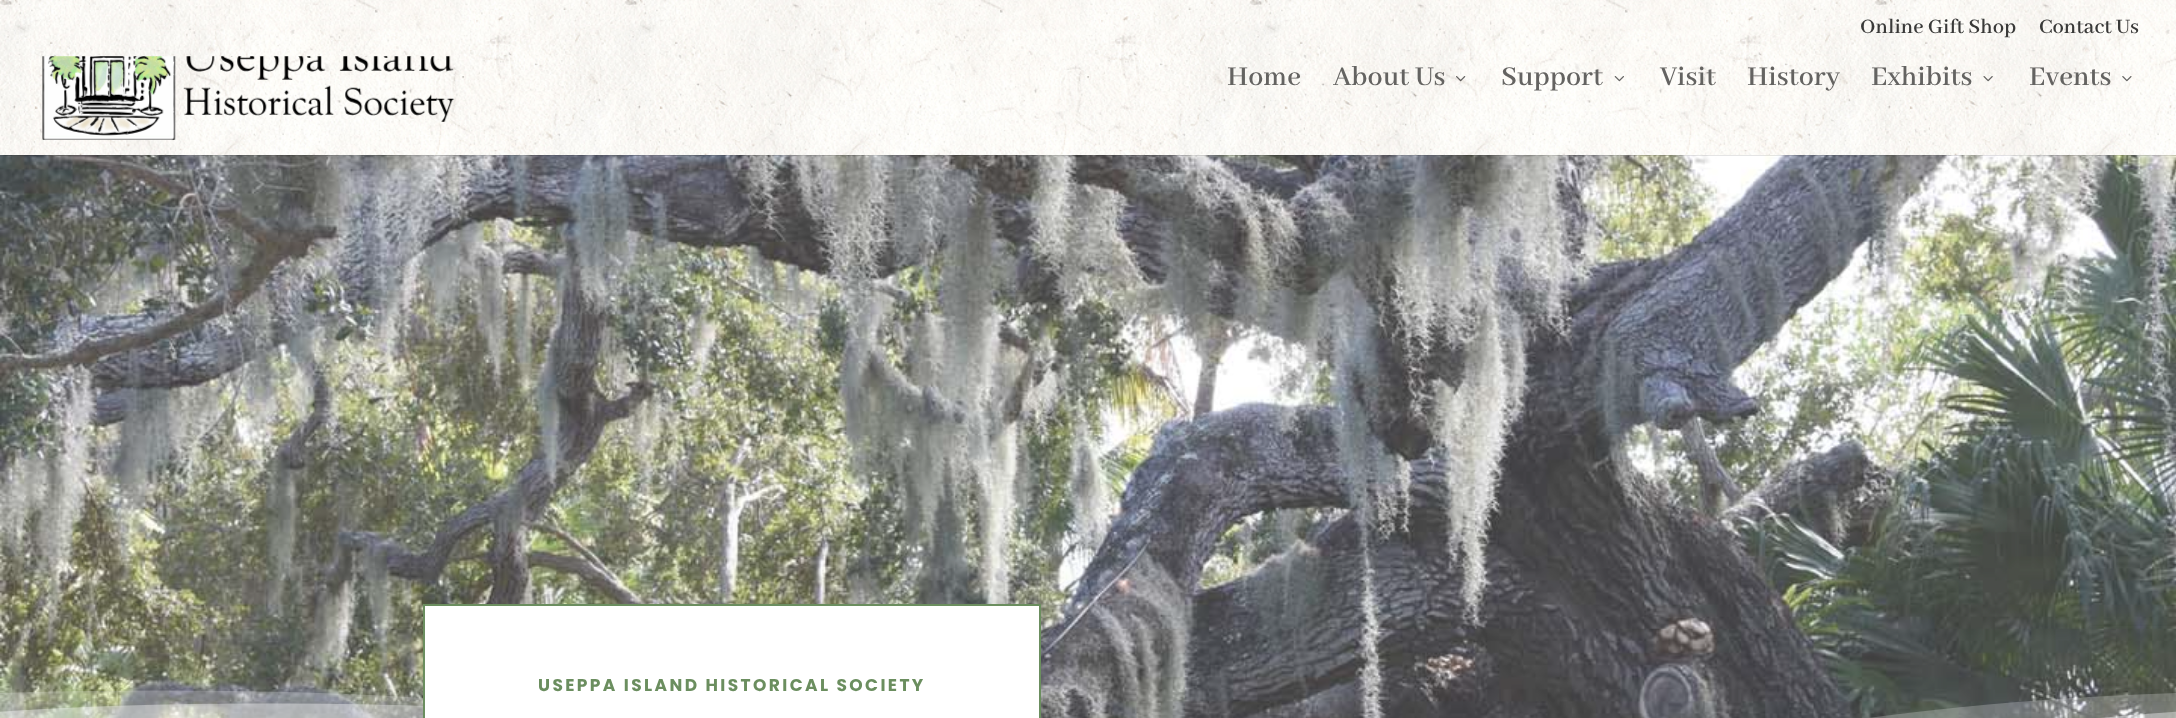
<!DOCTYPE html>
<meta charset="utf-8">
<style>body { margin: 0 } canvas { display: block }</style>
<canvas id="canvas" width="2176" height="718"></canvas>
<script type="module">
  const canvas = document.getElementById("canvas");
  const ctx = canvas.getContext("2d");
  ctx.miterLimit = 4;
  ctx.fontKerning = "normal";
  async function loadImage(src) {
    const img = new Image();
    img.src = src;
    await img.decode();
    return img;
  }

  ctx.fillStyle = "#ffffff";
  ctx.fillRect(0, 0, 2176, 718);
  ctx.drawImage(await loadImage("img2.png"), 0, 0, 2176, 155);
  ctx.drawImage(await loadImage("img3.png"), 42, 56, 413, 84);
  ctx.drawImage(await loadImage("img1.png"), 42, 14, 409, 43);
  ctx.font = "600 22.5px Abhaya Libre SemiBold";
  ctx.fillStyle = "#393938";
  ctx.fillText("Online Gift Shop", 1860, 33);
  ctx.fillText("Contact Us", 2039, 33);
  ctx.save();
  ctx.beginPath();
  ctx.moveTo(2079, 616);
  ctx.lineTo(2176, 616);
  ctx.lineTo(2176, 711);
  ctx.lineTo(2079, 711);
  ctx.closePath();
  ctx.moveTo(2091.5, 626);
  ctx.lineTo(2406.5, 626);
  ctx.bezierCurveTo(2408, 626, 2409, 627, 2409, 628.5);
  ctx.lineTo(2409, 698.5);
  ctx.bezierCurveTo(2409, 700, 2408, 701, 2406.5, 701);
  ctx.lineTo(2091.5, 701);
  ctx.bezierCurveTo(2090, 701, 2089, 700, 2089, 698.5);
  ctx.lineTo(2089, 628.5);
  ctx.bezierCurveTo(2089, 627, 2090, 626, 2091.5, 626);
  ctx.closePath();
  ctx.clip("evenodd");
  ctx.fillStyle = "#e2e2e2";
  ctx.filter = "blur(3px)";
  ctx.beginPath();
  ctx.roundRect(2089, 626, 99, 75, 2.5);
  ctx.fill();
  ctx.filter = "none";
  ctx.restore();
  ctx.drawImage(await loadImage("img8.png"), 0, 155, 2176, 563);
  ctx.fillStyle = "rgba(0, 0, 0, 0.1)";
  ctx.fillRect(0, 155, 2176, 1);
  ctx.font = "600 30px Abhaya Libre SemiBold";
  ctx.fillStyle = "#646361";
  ctx.fillText("Home", 1227, 85);
  ctx.fillText("About Us", 1333, 85);
  ctx.drawImage(await loadImage("img4.png"), 1456, 76, 10, 6);
  ctx.fillText("Support", 1501, 85);
  ctx.drawImage(await loadImage("img5.png"), 1614, 76, 10, 6);
  ctx.fillText("Visit", 1660, 85);
  ctx.fillText("History", 1747, 85);
  ctx.fillText("Exhibits", 1871, 85);
  ctx.drawImage(await loadImage("img6.png"), 1983, 76, 10, 6);
  ctx.fillText("Events", 2029, 85);
  ctx.drawImage(await loadImage("img7.png"), 2122, 76, 10, 6);
  ctx.drawImage(await loadImage("img9.png"), 0, 690, 2176, 28);
  ctx.fillStyle = "rgba(0, 0, 0, 0.2)";
  ctx.filter = "blur(48.5px)";
  ctx.beginPath();
  ctx.rect(430, 629, 604, 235);
  ctx.fill();
  ctx.filter = "none";
  ctx.fillStyle = "#ffffff";
  ctx.beginPath();
  ctx.rect(424, 605, 616, 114);
  ctx.fill();
  ctx.strokeStyle = "#6b8e5f";
  ctx.lineWidth = 2;
  ctx.stroke();
  ctx.letterSpacing = "2.4px";
  ctx.font = "bold 17px Poppins";
  ctx.fillStyle = "#6b8e5f";
  ctx.fillText("USEPPA ISLAND HISTORICAL SOCIETY", 538, 691);
</script>
